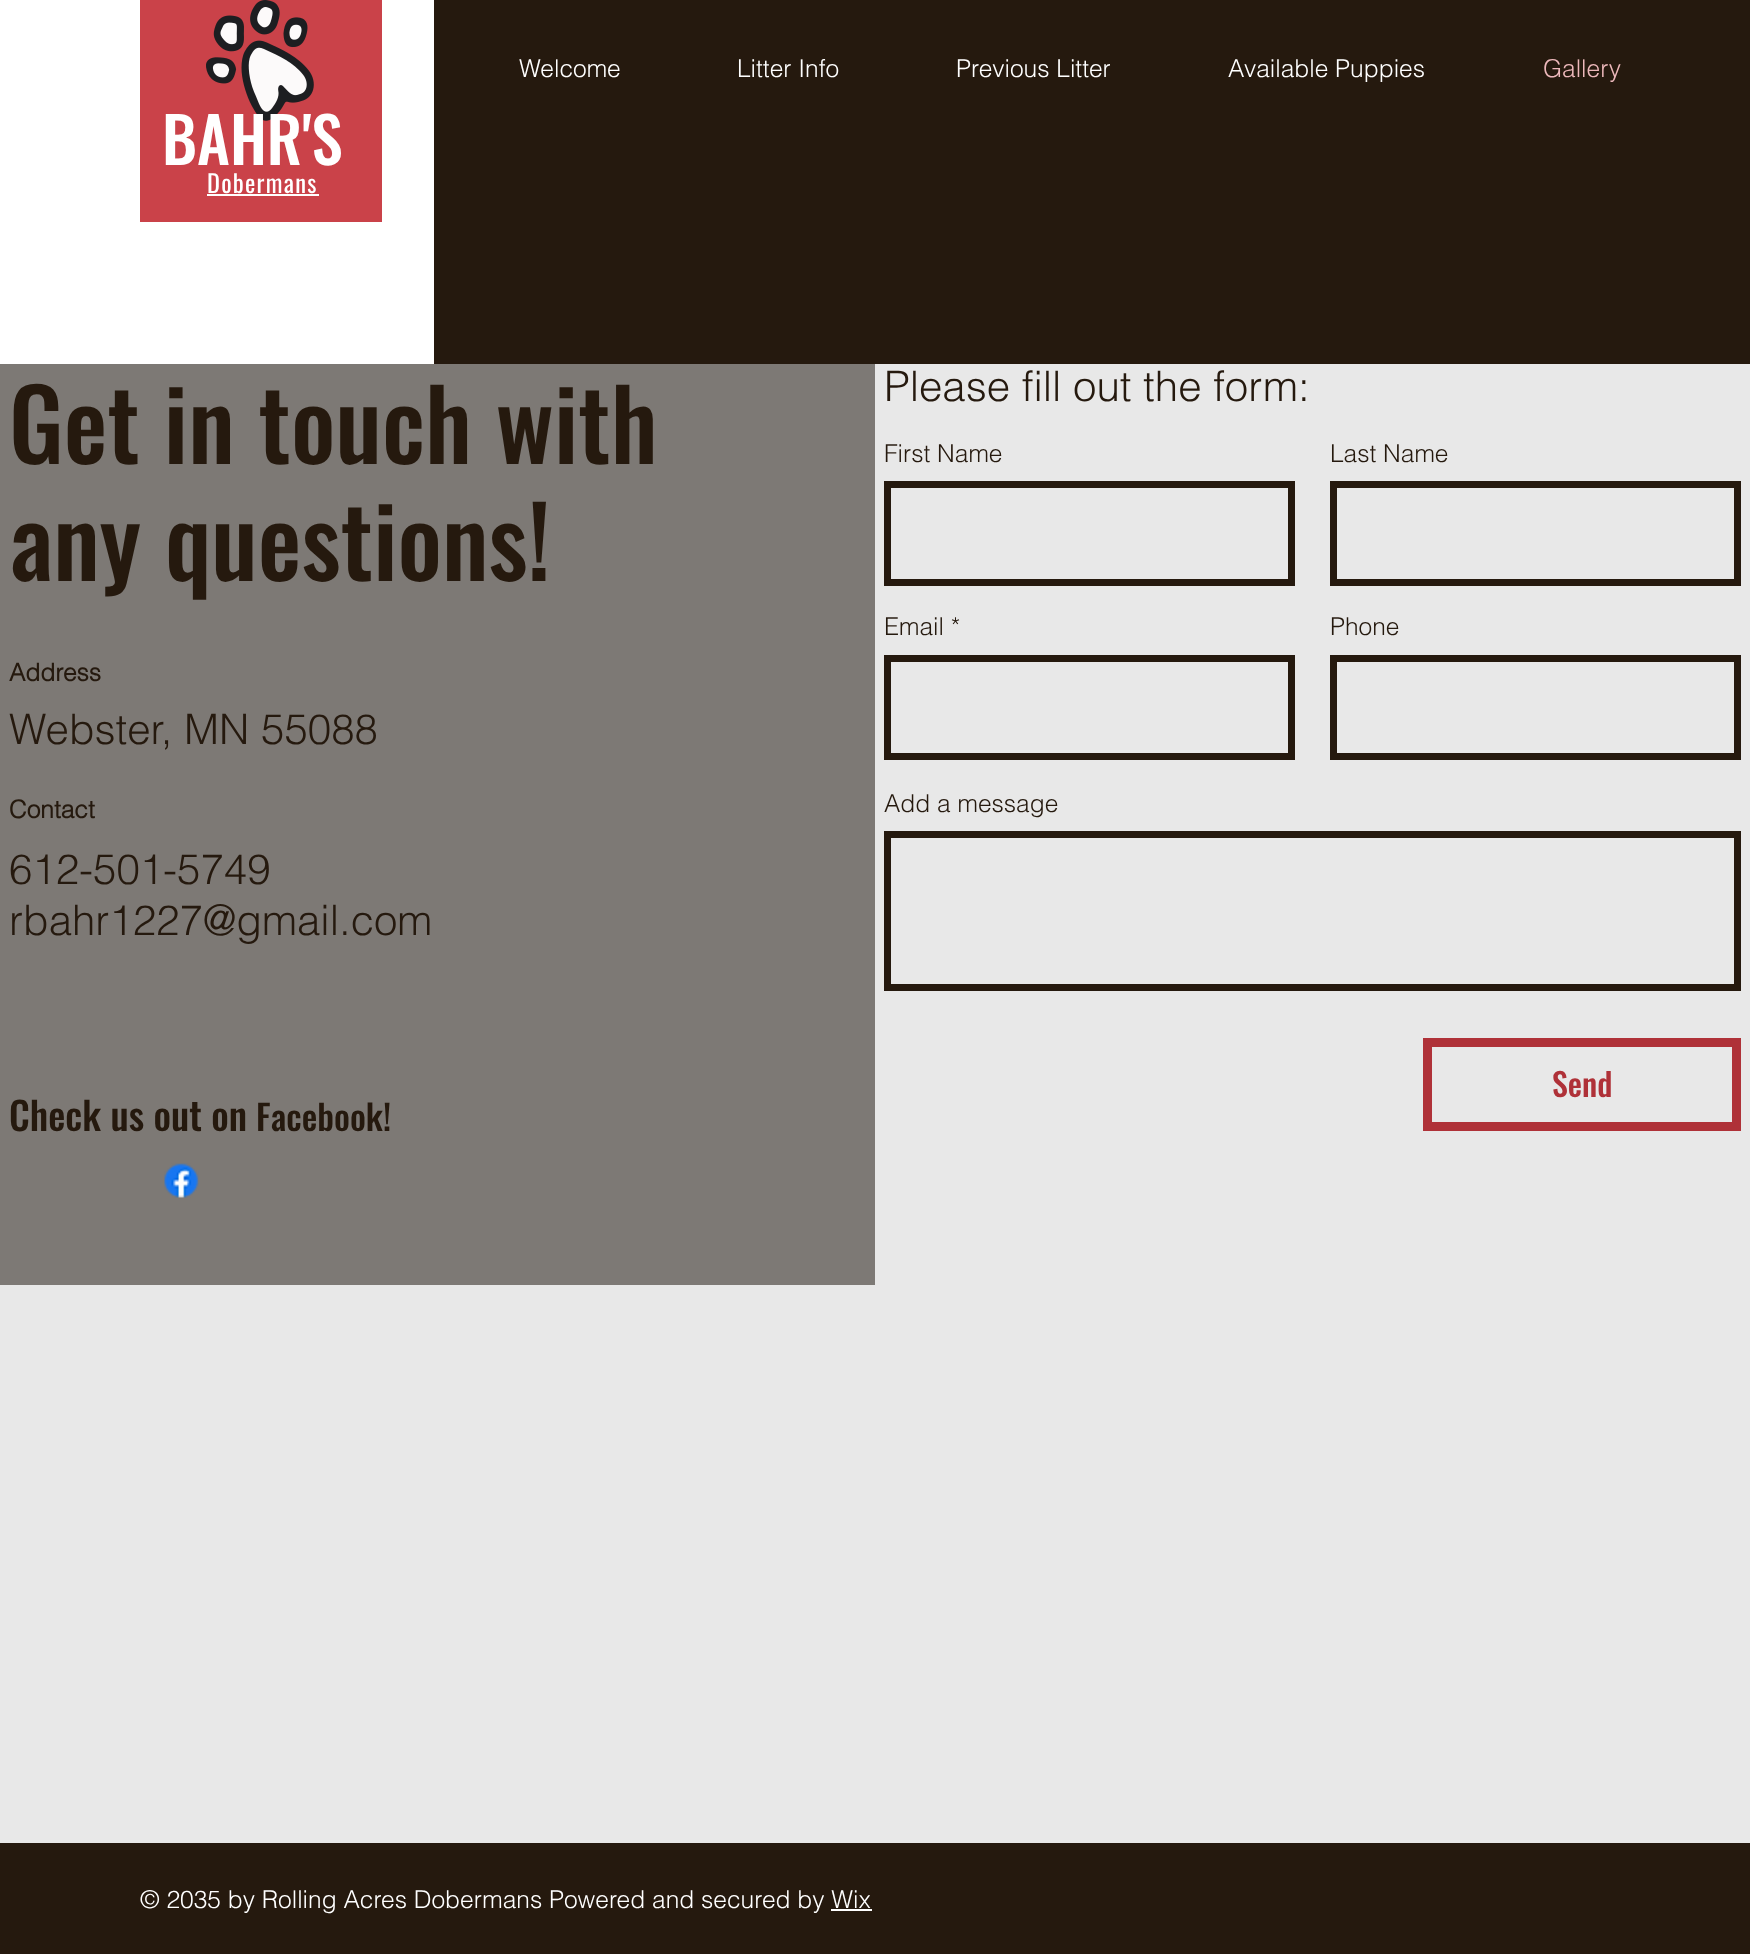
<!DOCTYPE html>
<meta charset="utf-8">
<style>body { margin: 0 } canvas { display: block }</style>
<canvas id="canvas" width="1750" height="1954"></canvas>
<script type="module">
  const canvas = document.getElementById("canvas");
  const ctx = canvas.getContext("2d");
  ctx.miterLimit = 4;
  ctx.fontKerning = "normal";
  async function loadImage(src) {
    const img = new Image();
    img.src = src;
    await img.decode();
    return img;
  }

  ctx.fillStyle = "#e8e8e8";
  ctx.fillRect(0, 0, 1750, 1954);
  ctx.fillStyle = "#25190e";
  ctx.fillRect(434, 0, 1316, 364);
  ctx.font = "300 24.5px helvetica";
  ctx.fillStyle = "#ffffff";
  ctx.fillText("Welcome", 519, 77);
  ctx.fillText("Litter Info", 737, 77);
  ctx.fillText("Previous Litter", 956, 77);
  ctx.fillText("Available Puppies", 1228, 77);
  ctx.fillStyle = "#edb8bb";
  ctx.fillText("Gallery", 1543, 77);
  ctx.fillStyle = "#ffffff";
  ctx.fillRect(0, 0, 434, 364);
  ctx.fillStyle = "#ca4249";
  ctx.fillRect(140, 0, 242, 222);
  ctx.drawImage(await loadImage("img1.png"), 206, 0, 108, 121);
  ctx.font = "500 63px Oswald";
  ctx.fillStyle = "#ffffff";
  ctx.fillText("BAHR'S", 162, 165);
  ctx.letterSpacing = "1.25px";
  ctx.font = "24.5px Oswald";
  ctx.fillText("Dobermans", 207, 193);
  ctx.fillRect(207, 194, 112, 2);
  ctx.fillStyle = "#7d7975";
  ctx.fillRect(0, 364, 875, 921);
  ctx.letterSpacing = "0px";
  ctx.font = "500 98px Oswald";
  ctx.fillStyle = "#25190e";
  ctx.fillText("Get in touch with", 9, 464);
  ctx.fillText("any questions!", 9, 581);
  ctx.font = "bold 24.5px helvetica";
  ctx.fillText("Address", 9, 681);
  ctx.font = "300 42px helvetica";
  ctx.fillText("Webster, MN 55088", 9, 744);
  ctx.font = "bold 24.5px helvetica";
  ctx.fillText("Contact", 9, 818);
  ctx.font = "300 42px helvetica";
  ctx.fillText("612-501-5749", 9, 884);
  ctx.fillText("rbahr1227@gmail.com", 9, 935);
  ctx.font = "500 38.5px Oswald";
  ctx.fillText("Check us out on", 9, 1131);
  ctx.font = "500 35px Oswald";
  ctx.fillText("Facebook!", 256, 1131);
  ctx.drawImage(await loadImage("img2.png"), 164, 1163, 35, 35);
  ctx.font = "300 42px helvetica";
  ctx.fillText("Please fill out the form:", 884, 401);
  ctx.font = "300 24.5px helvetica";
  ctx.fillText("First Name", 884, 462);
  ctx.strokeStyle = "#25190e";
  ctx.lineWidth = 7;
  ctx.strokeRect(887.5, 484.5, 404, 98);
  ctx.fillText("Last Name", 1330, 462);
  ctx.strokeRect(1333.5, 484.5, 404, 98);
  ctx.fillText("Email *", 884, 635);
  ctx.strokeRect(887.5, 658.5, 404, 98);
  ctx.fillText("Phone", 1330, 635);
  ctx.strokeRect(1333.5, 658.5, 404, 98);
  ctx.fillText("Add a message", 884, 812);
  ctx.strokeRect(887.5, 834.5, 850, 153);
  ctx.strokeStyle = "#af3138";
  ctx.lineWidth = 9;
  ctx.strokeRect(1427.5, 1042.5, 309, 84);
  ctx.font = "500 32px Oswald";
  ctx.fillStyle = "#af3138";
  ctx.fillText("Send", 1552, 1097);
  ctx.fillStyle = "#25190e";
  ctx.fillRect(0, 1843, 1750, 111);
  ctx.font = "300 24.5px helvetica";
  ctx.fillStyle = "#ffffff";
  ctx.fillText("© 2035 by Rolling Acres Dobermans Powered and secured by Wix", 140, 1908);
  ctx.fillRect(831, 1909, 41, 2);
</script>
